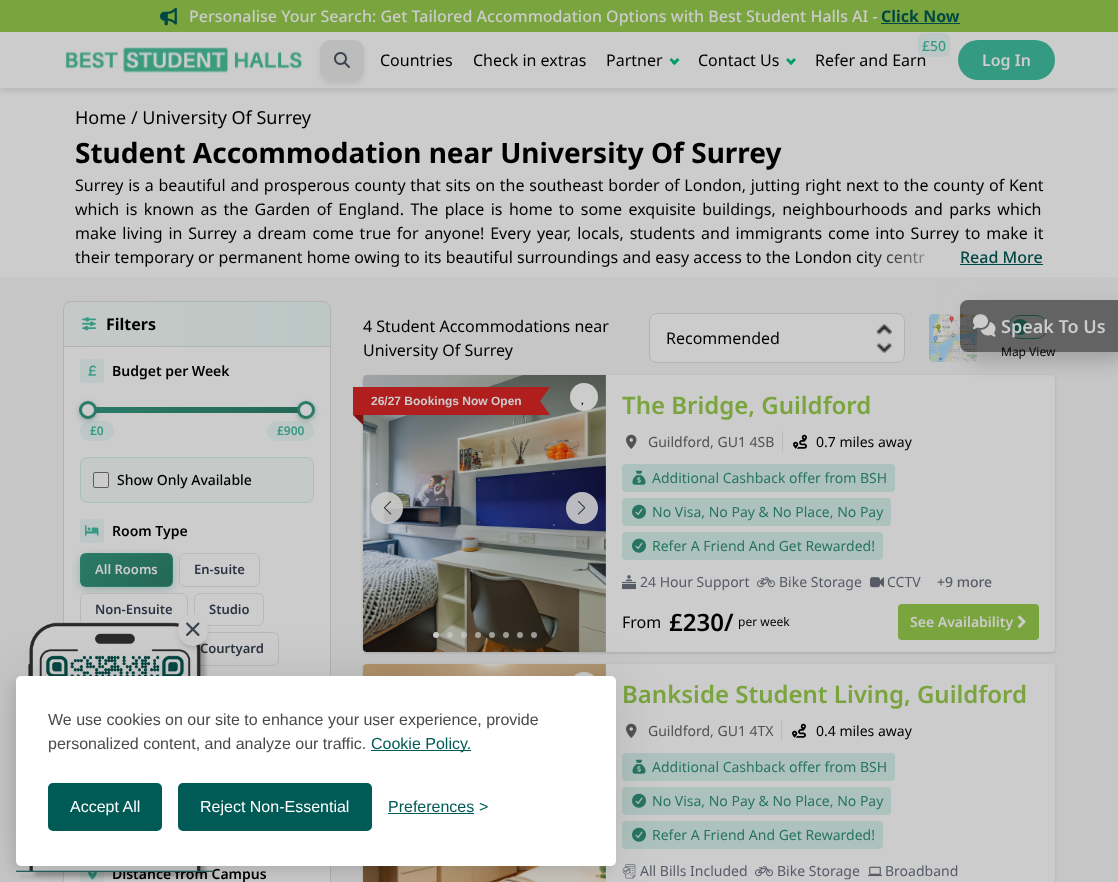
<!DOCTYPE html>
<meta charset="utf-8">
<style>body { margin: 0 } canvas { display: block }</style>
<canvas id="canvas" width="1118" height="882"></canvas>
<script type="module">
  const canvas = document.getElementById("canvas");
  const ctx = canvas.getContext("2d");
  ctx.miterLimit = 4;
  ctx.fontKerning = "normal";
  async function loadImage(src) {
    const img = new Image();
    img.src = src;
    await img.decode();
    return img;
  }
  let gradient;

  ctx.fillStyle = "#cccccc";
  ctx.fillRect(0, 0, 1118, 882);
  ctx.fillStyle = "#7aa43d";
  ctx.fillRect(0, 0, 1118, 32);
  ctx.drawImage(await loadImage("img1.png"), 160, 7, 17, 19);
  ctx.font = "500 16px Noto Sans";
  ctx.fillStyle = "#cccccc";
  ctx.fillText("Personalise Your Search: Get Tailored Accommodation Options with Best Student Halls AI -", 189, 22);
  ctx.font = "bold 16px Noto Sans";
  ctx.fillStyle = "#004844";
  ctx.fillText("Click Now", 881, 22);
  ctx.fillRect(881, 23, 79, 1);
  ctx.save();
  ctx.beginPath();
  ctx.rect(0, 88, 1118, 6);
  ctx.clip();
  ctx.fillStyle = "rgba(0, 0, 0, 0.1)";
  ctx.filter = "blur(3px)";
  ctx.beginPath();
  ctx.rect(1, 37, 1116, 54);
  ctx.fill();
  ctx.filter = "none";
  ctx.restore();
  ctx.drawImage(await loadImage("img2.png"), 65, 47, 237, 26);
  ctx.save();
  ctx.beginPath();
  ctx.moveTo(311, 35);
  ctx.lineTo(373, 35);
  ctx.lineTo(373, 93);
  ctx.lineTo(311, 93);
  ctx.closePath();
  ctx.moveTo(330, 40);
  ctx.lineTo(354, 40);
  ctx.bezierCurveTo(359.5, 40, 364, 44.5, 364, 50);
  ctx.lineTo(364, 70);
  ctx.bezierCurveTo(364, 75.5, 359.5, 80, 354, 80);
  ctx.lineTo(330, 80);
  ctx.bezierCurveTo(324.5, 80, 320, 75.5, 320, 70);
  ctx.lineTo(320, 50);
  ctx.bezierCurveTo(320, 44.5, 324.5, 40, 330, 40);
  ctx.closePath();
  ctx.clip("evenodd");
  ctx.fillStyle = "rgba(0, 0, 0, 0.1)";
  ctx.filter = "blur(3px)";
  ctx.beginPath();
  ctx.roundRect(321, 45, 42, 38, 9);
  ctx.fill();
  ctx.filter = "none";
  ctx.restore();
  ctx.fillStyle = "rgba(153, 153, 153, 0.3)";
  ctx.beginPath();
  ctx.roundRect(320, 40, 44, 40, 10);
  ctx.fill();
  ctx.drawImage(await loadImage("img3.png"), 334, 52, 16, 16);
  ctx.font = "16px Noto Sans";
  ctx.fillStyle = "#000000";
  ctx.fillText("Countries", 380, 66);
  ctx.fillText("Check in extras", 473, 66);
  ctx.fillText("Partner", 606, 66);
  ctx.fillStyle = "#009d66";
  ctx.beginPath();
  ctx.moveTo(677.5, 58);
  ctx.lineTo(679.5, 60);
  ctx.lineTo(674.5, 65);
  ctx.lineTo(672, 63);
  ctx.closePath();
  ctx.fill();
  ctx.beginPath();
  ctx.moveTo(671.5, 58);
  ctx.lineTo(676.5, 63);
  ctx.lineTo(674.5, 65);
  ctx.lineTo(669.5, 60);
  ctx.closePath();
  ctx.fill();
  ctx.fillStyle = "#000000";
  ctx.fillText("Contact Us", 698, 66);
  ctx.fillStyle = "#009d66";
  ctx.beginPath();
  ctx.moveTo(794, 58);
  ctx.lineTo(796, 60);
  ctx.lineTo(791, 65);
  ctx.lineTo(789, 63);
  ctx.closePath();
  ctx.fill();
  ctx.beginPath();
  ctx.moveTo(788, 58);
  ctx.lineTo(793, 63);
  ctx.lineTo(791, 65);
  ctx.lineTo(786, 60);
  ctx.closePath();
  ctx.fill();
  ctx.fillStyle = "#000000";
  ctx.fillText("Refer and Earn", 815, 66);
  ctx.fillStyle = "#bdc7c5";
  ctx.beginPath();
  ctx.roundRect(918, 33, 32, 24, 6);
  ctx.fill();
  ctx.font = "500 14px Noto Sans";
  ctx.fillStyle = "#359a82";
  ctx.fillText("£50", 922, 51);
  ctx.beginPath();
  ctx.roundRect(958, 40, 97, 40, 20);
  ctx.fill();
  ctx.font = "600 16px Noto Sans";
  ctx.fillStyle = "#cccccc";
  ctx.fillText("Log In", 982, 66);
  ctx.font = "18px Noto Sans";
  ctx.fillStyle = "#000000";
  ctx.fillText("Home / University Of Surrey", 75, 124);
  ctx.font = "bold 28px Noto Sans";
  ctx.fillText("Student Accommodation near University Of Surrey", 75, 163);
  ctx.wordSpacing = "0.6px";
  ctx.font = "16px Noto Sans";
  ctx.fillText("Surrey is a beautiful and prosperous county that sits on the southeast border of London, jutting right next to the county of Kent", 75, 191);
  ctx.wordSpacing = "2.25px";
  ctx.fillText("which is known as the Garden of England. The place is home to some exquisite buildings, neighbourhoods and parks which", 75, 215);
  ctx.wordSpacing = "1.7px";
  ctx.fillText("make living in Surrey a dream come true for anyone! Every year, locals, students and immigrants come into Surrey to make it", 75, 239);
  ctx.wordSpacing = "0px";
  ctx.fillText("their temporary or permanent home owing to its beautiful surroundings and easy access to the London city centr", 75, 263);
  gradient = ctx.createLinearGradient(864, 257, 1043, 257);
  gradient.addColorStop(0, "rgba(204, 204, 204, 0)");
  gradient.addColorStop(0.5, "#cccccc");
  gradient.addColorStop(1, "#cccccc");
  ctx.fillStyle = gradient;
  ctx.fillRect(866, 252, 59, 15);
  ctx.font = "500 16px Noto Sans";
  ctx.fillStyle = "#004844";
  ctx.fillText("Read More", 960, 263);
  ctx.fillRect(960, 264, 83, 1);
  ctx.fillStyle = "#c6c6c6";
  ctx.fillRect(0, 277, 1118, 605);
  ctx.fillStyle = "#cccccc";
  ctx.beginPath();
  ctx.roundRect(63.5, 301.5, 267, 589, 7.5);
  ctx.fill();
  ctx.strokeStyle = "#b3b3b3";
  ctx.stroke();
  gradient = ctx.createLinearGradient(64, 324, 330, 324);
  gradient.addColorStop(0, "rgba(53, 154, 130, 0.05)");
  gradient.addColorStop(1, "rgba(53, 154, 130, 0.1)");
  ctx.fillStyle = gradient;
  ctx.beginPath();
  ctx.roundRect(64, 302, 266, 44, [7, 7, 0, 0]);
  ctx.fill();
  ctx.fillStyle = "#b3b3b3";
  ctx.fillRect(64, 346, 266, 1);
  ctx.drawImage(await loadImage("img4.png"), 82, 317, 14, 14);
  ctx.font = "bold 16px Noto Sans";
  ctx.fillStyle = "#000000";
  ctx.fillText("Filters", 106, 330);
  ctx.fillStyle = "#bdc7c5";
  ctx.beginPath();
  ctx.roundRect(80, 359, 24, 24, 4);
  ctx.fill();
  ctx.drawImage(await loadImage("img5.png"), 88, 365, 9, 11);
  ctx.font = "600 14px Noto Sans";
  ctx.fillStyle = "#000000";
  ctx.fillText("Budget per Week", 112, 376);
  gradient = ctx.createLinearGradient(88, 410, 306, 410);
  gradient.addColorStop(0, "#2a7b68");
  gradient.addColorStop(1, "#246754");
  ctx.fillStyle = gradient;
  ctx.fillRect(88, 407, 218, 6);
  ctx.fillStyle = "#bdc7c5";
  ctx.beginPath();
  ctx.roundRect(80, 421, 34, 20, 10);
  ctx.fill();
  ctx.fillStyle = "rgba(0, 0, 0, 0.1)";
  ctx.filter = "blur(1.5px)";
  ctx.beginPath();
  ctx.roundRect(79, 402, 18, 18, 9);
  ctx.fill();
  ctx.filter = "none";
  ctx.fillStyle = "rgba(42, 123, 104, 0.3)";
  ctx.filter = "blur(3px)";
  ctx.beginPath();
  ctx.roundRect(79, 403, 18, 18, 9);
  ctx.fill();
  ctx.filter = "none";
  ctx.fillStyle = "#cccccc";
  ctx.beginPath();
  ctx.arc(88, 410, 7.5, 0, Math.PI * 2);
  ctx.fill();
  ctx.strokeStyle = "#2a7b68";
  ctx.lineWidth = 3;
  ctx.stroke();
  ctx.fillStyle = "#bdc7c5";
  ctx.beginPath();
  ctx.roundRect(267, 421, 47, 20, 10);
  ctx.fill();
  ctx.fillStyle = "rgba(0, 0, 0, 0.1)";
  ctx.filter = "blur(1.5px)";
  ctx.beginPath();
  ctx.roundRect(297, 402, 18, 18, 9);
  ctx.fill();
  ctx.filter = "none";
  ctx.fillStyle = "rgba(42, 123, 104, 0.3)";
  ctx.filter = "blur(3px)";
  ctx.beginPath();
  ctx.roundRect(297, 403, 18, 18, 9);
  ctx.fill();
  ctx.filter = "none";
  ctx.fillStyle = "#cccccc";
  ctx.beginPath();
  ctx.arc(306, 410, 7.5, 0, Math.PI * 2);
  ctx.fill();
  ctx.stroke();
  ctx.font = "600 12px Noto Sans";
  ctx.fillStyle = "#359a82";
  ctx.fillText("£0", 90, 435);
  ctx.fillText("£900", 277, 435);
  ctx.fillStyle = "#c5cac8";
  ctx.beginPath();
  ctx.roundRect(80, 457, 234, 46, 8);
  ctx.fill();
  ctx.beginPath();
  ctx.roundRect(80.5, 457.5, 233, 45, 7.5);
  ctx.strokeStyle = "rgba(53, 154, 130, 0.2)";
  ctx.lineWidth = 1;
  ctx.stroke();
  ctx.fillStyle = "#cccccc";
  ctx.beginPath();
  ctx.roundRect(93.5, 472.5, 15, 15, 1.5);
  ctx.fill();
  ctx.strokeStyle = "#5e5e5e";
  ctx.stroke();
  ctx.font = "500 14px Noto Sans";
  ctx.fillStyle = "#000000";
  ctx.fillText("Show Only Available", 117, 485);
  ctx.fillStyle = "#bdc7c5";
  ctx.beginPath();
  ctx.roundRect(80, 519, 24, 24, 4);
  ctx.fill();
  ctx.drawImage(await loadImage("img6.png"), 85, 525, 14, 11);
  ctx.font = "600 14px Noto Sans";
  ctx.fillStyle = "#000000";
  ctx.fillText("Room Type", 112, 536);
  ctx.fillStyle = "rgba(42, 123, 104, 0.3)";
  ctx.filter = "blur(5px)";
  ctx.beginPath();
  ctx.roundRect(80, 556, 93, 34, 6);
  ctx.fill();
  ctx.filter = "none";
  ctx.save();
  ctx.beginPath();
  ctx.roundRect(80, 553, 93, 34, 6);
  ctx.clip();
  gradient = ctx.createLinearGradient(96, 539, 157, 601);
  gradient.addColorStop(0, "#2a7b68");
  gradient.addColorStop(1, "#246754");
  ctx.fillStyle = gradient;
  ctx.fillRect(81, 554, 91, 32);
  ctx.restore();
  ctx.beginPath();
  ctx.roundRect(80.5, 553.5, 92, 33, 5.5);
  ctx.strokeStyle = "#2a7b68";
  ctx.stroke();
  ctx.font = "600 13px Noto Sans";
  ctx.fillStyle = "#cccccc";
  ctx.fillText("All Rooms", 95, 574);
  ctx.beginPath();
  ctx.roundRect(179.5, 553.5, 80, 33, 5.5);
  ctx.fill();
  ctx.strokeStyle = "#b7b9bc";
  ctx.stroke();
  ctx.fillStyle = "#2c3441";
  ctx.fillText("En-suite", 194, 574);
  ctx.fillStyle = "#cccccc";
  ctx.beginPath();
  ctx.roundRect(80.5, 593.5, 107, 32, 5.5);
  ctx.fill();
  ctx.stroke();
  ctx.fillStyle = "#2c3441";
  ctx.fillText("Non-Ensuite", 95, 614);
  ctx.beginPath();
  ctx.roundRect(194.5, 593.5, 69, 32, 5.5);
  ctx.stroke();
  ctx.fillText("Studio", 209, 614);
  ctx.beginPath();
  ctx.roundRect(185.5, 632.5, 93, 33, 5.5);
  ctx.stroke();
  ctx.fillText("Courtyard", 200, 653);
  ctx.fillStyle = "#bdc7c5";
  ctx.fillRect(80, 872, 24, 10);
  ctx.drawImage(await loadImage("img7.png"), 88, 872, 9, 8);
  ctx.font = "600 14px Noto Sans";
  ctx.fillStyle = "#000000";
  ctx.fillText("Distance from Campus", 112, 879);
  ctx.font = "16px Noto Sans";
  ctx.fillText("4 Student Accommodations near", 363, 332);
  ctx.fillText("University Of Surrey", 363, 356);
  ctx.fillStyle = "#cccccc";
  ctx.beginPath();
  ctx.roundRect(649, 313, 256, 50, 8);
  ctx.fill();
  ctx.drawImage(await loadImage("img8.png"), 876, 324, 16, 29);
  ctx.beginPath();
  ctx.roundRect(649.5, 313.5, 255, 49, 7.5);
  ctx.strokeStyle = "#b3b3b3";
  ctx.stroke();
  ctx.fillStyle = "#000000";
  ctx.fillText("Recommended", 666, 344);
  ctx.drawImage(await loadImage("img9.png"), 929, 314, 48, 48);
  ctx.beginPath();
  ctx.roundRect(1008.5, 315.5, 39, 23, 11.5);
  ctx.strokeStyle = "#359a82";
  ctx.stroke();
  ctx.fillStyle = "#359a82";
  ctx.beginPath();
  ctx.arc(1020, 327, 8, 0, Math.PI * 2);
  ctx.fill();
  ctx.font = "12px Noto Sans";
  ctx.fillStyle = "#000000";
  ctx.fillText("Map View", 1001, 356);
  ctx.fillStyle = "rgba(0, 0, 0, 0.1)";
  ctx.filter = "blur(1px)";
  ctx.beginPath();
  ctx.roundRect(364, 377, 690, 275, 3);
  ctx.fill();
  ctx.filter = "none";
  ctx.filter = "blur(1.5px)";
  ctx.beginPath();
  ctx.roundRect(363, 376, 692, 277, 4);
  ctx.fill();
  ctx.filter = "none";
  ctx.fillStyle = "#cccccc";
  ctx.beginPath();
  ctx.roundRect(363, 375, 692, 277, 4);
  ctx.fill();
  ctx.drawImage(await loadImage("img10.png"), 363, 375, 243, 277);
  ctx.fillStyle = "rgba(204, 204, 204, 0.9)";
  ctx.beginPath();
  ctx.arc(387, 508, 16, 0, Math.PI * 2);
  ctx.fill();
  ctx.drawImage(await loadImage("img11.png"), 384, 501, 8, 14);
  ctx.beginPath();
  ctx.arc(582, 508, 16, 0, Math.PI * 2);
  ctx.fill();
  ctx.drawImage(await loadImage("img12.png"), 578, 501, 8, 14);
  ctx.fillStyle = "#cccccc";
  ctx.beginPath();
  ctx.arc(436, 635, 3, 0, Math.PI * 2);
  ctx.fill();
  ctx.fillStyle = "#c2c2be";
  ctx.beginPath();
  ctx.arc(450, 635, 3, 0, Math.PI * 2);
  ctx.fill();
  ctx.fillStyle = "rgba(204, 204, 204, 0.7)";
  ctx.beginPath();
  ctx.arc(464, 635, 3, 0, Math.PI * 2);
  ctx.fill();
  ctx.beginPath();
  ctx.arc(478, 635, 3, 0, Math.PI * 2);
  ctx.fill();
  ctx.beginPath();
  ctx.arc(492, 635, 3, 0, Math.PI * 2);
  ctx.fill();
  ctx.beginPath();
  ctx.arc(506, 635, 3, 0, Math.PI * 2);
  ctx.fill();
  ctx.beginPath();
  ctx.arc(520, 635, 3, 0, Math.PI * 2);
  ctx.fill();
  ctx.beginPath();
  ctx.arc(534, 635, 3, 0, Math.PI * 2);
  ctx.fill();
  ctx.fillStyle = "#cccccc";
  ctx.beginPath();
  ctx.arc(584, 397, 14, 0, Math.PI * 2);
  ctx.fill();
  ctx.drawImage(await loadImage("img13.png"), 581, 402, 3, 4);
  ctx.font = "600 24px Noto Sans";
  ctx.fillStyle = "#7aa43d";
  ctx.fillText("The Bridge, Guildford", 622, 414);
  ctx.drawImage(await loadImage("img14.png"), 626, 434, 11, 15);
  ctx.font = "14px Noto Sans";
  ctx.fillStyle = "#525252";
  ctx.fillText("Guildford, GU1 4SB", 648, 447);
  ctx.fillStyle = "#b7b9bc";
  ctx.fillRect(782, 431, 1, 21);
  ctx.drawImage(await loadImage("img15.png"), 793, 434, 14, 15);
  ctx.fillStyle = "#000000";
  ctx.fillText("0.7 miles away", 816, 447);
  ctx.fillStyle = "#aec2bd";
  ctx.beginPath();
  ctx.roundRect(622, 464, 273, 28, 4);
  ctx.fill();
  ctx.drawImage(await loadImage("img16.png"), 632, 470, 14, 15);
  ctx.fillStyle = "#287462";
  ctx.fillText("Additional Cashback offer from BSH", 652, 483);
  ctx.fillStyle = "#aec2bd";
  ctx.beginPath();
  ctx.roundRect(622, 498, 269, 28, 4);
  ctx.fill();
  ctx.drawImage(await loadImage("img17.png"), 632, 504, 14, 15);
  ctx.fillStyle = "#287462";
  ctx.fillText("No Visa, No Pay & No Place, No Pay", 652, 517);
  ctx.fillStyle = "#aec2bd";
  ctx.beginPath();
  ctx.roundRect(622, 532, 261, 28, 4);
  ctx.fill();
  ctx.drawImage(await loadImage("img17.png"), 632, 538, 14, 15);
  ctx.fillStyle = "#287462";
  ctx.fillText("Refer A Friend And Get Rewarded!", 652, 551);
  ctx.drawImage(await loadImage("img18.png"), 622, 575, 14, 15);
  ctx.fillStyle = "#565b66";
  ctx.fillText("24 Hour Support", 640, 587);
  ctx.drawImage(await loadImage("img19.png"), 757, 577, 18, 11);
  ctx.fillText("Bike Storage", 779, 587);
  ctx.drawImage(await loadImage("img20.png"), 870, 577, 14, 11);
  ctx.fillText("CCTV", 887, 587);
  ctx.font = "500 14px Noto Sans";
  ctx.fillText("+9 more", 937, 587);
  ctx.font = "16px Noto Sans";
  ctx.fillStyle = "#000000";
  ctx.fillText("From", 622, 628);
  ctx.font = "600 24px Noto Sans";
  ctx.fillText("£230/", 669, 631);
  ctx.font = "12px Noto Sans";
  ctx.fillText("per week", 738, 626);
  ctx.fillStyle = "#7aa43d";
  ctx.beginPath();
  ctx.roundRect(898, 604, 141, 36, 4);
  ctx.fill();
  ctx.font = "600 14px Noto Sans";
  ctx.fillStyle = "#cccccc";
  ctx.fillText("See Availability", 910, 627);
  ctx.drawImage(await loadImage("img21.png"), 1017, 615, 9, 13);
  ctx.fillStyle = "#b01e1e";
  ctx.beginPath();
  ctx.moveTo(550, 415);
  ctx.lineTo(363, 415);
  ctx.lineTo(363, 425);
  ctx.lineTo(353, 415);
  ctx.lineTo(353, 387);
  ctx.lineTo(550, 387);
  ctx.lineTo(540, 401);
  ctx.closePath();
  ctx.fill();
  ctx.fillStyle = "rgba(0, 0, 0, 0.33)";
  ctx.beginPath();
  ctx.moveTo(363.5, 415);
  ctx.lineTo(353.5, 415);
  ctx.lineTo(363.5, 425);
  ctx.closePath();
  ctx.fill();
  ctx.font = "bold 12px Liberation Sans";
  ctx.fillStyle = "#cccccc";
  ctx.fillText("26/27 Bookings Now Open", 371, 405);
  ctx.fillStyle = "rgba(0, 0, 0, 0.1)";
  ctx.filter = "blur(1.5px)";
  ctx.beginPath();
  ctx.roundRect(363, 665, 692, 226, 4);
  ctx.fill();
  ctx.filter = "none";
  ctx.fillStyle = "#cccccc";
  ctx.beginPath();
  ctx.roundRect(363, 664, 692, 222, 4);
  ctx.fill();
  ctx.drawImage(await loadImage("img22.png"), 363, 664, 243, 218);
  ctx.beginPath();
  ctx.arc(584, 686, 14, 0, Math.PI * 2);
  ctx.fill();
  ctx.font = "600 24px Noto Sans";
  ctx.fillStyle = "#7aa43d";
  ctx.fillText("Bankside Student Living, Guildford", 622, 703);
  ctx.drawImage(await loadImage("img14.png"), 626, 723, 11, 15);
  ctx.font = "14px Noto Sans";
  ctx.fillStyle = "#525252";
  ctx.fillText("Guildford, GU1 4TX", 648, 736);
  ctx.fillStyle = "#b7b9bc";
  ctx.fillRect(781, 720, 1, 21);
  ctx.drawImage(await loadImage("img15.png"), 792, 723, 14, 15);
  ctx.fillStyle = "#000000";
  ctx.fillText("0.4 miles away", 816, 736);
  ctx.fillStyle = "#aec2bd";
  ctx.beginPath();
  ctx.roundRect(622, 753, 273, 28, 4);
  ctx.fill();
  ctx.drawImage(await loadImage("img16.png"), 632, 759, 14, 15);
  ctx.fillStyle = "#287462";
  ctx.fillText("Additional Cashback offer from BSH", 652, 772);
  ctx.fillStyle = "#aec2bd";
  ctx.beginPath();
  ctx.roundRect(622, 787, 269, 28, 4);
  ctx.fill();
  ctx.drawImage(await loadImage("img17.png"), 632, 793, 14, 15);
  ctx.fillStyle = "#287462";
  ctx.fillText("No Visa, No Pay & No Place, No Pay", 652, 806);
  ctx.fillStyle = "#aec2bd";
  ctx.beginPath();
  ctx.roundRect(622, 821, 261, 28, 4);
  ctx.fill();
  ctx.drawImage(await loadImage("img17.png"), 632, 827, 14, 15);
  ctx.fillStyle = "#287462";
  ctx.fillText("Refer A Friend And Get Rewarded!", 652, 840);
  ctx.drawImage(await loadImage("img23.png"), 622, 864, 14, 15);
  ctx.fillStyle = "#565b66";
  ctx.fillText("All Bills Included", 640, 876);
  ctx.drawImage(await loadImage("img19.png"), 755, 866, 18, 11);
  ctx.fillText("Bike Storage", 777, 876);
  ctx.drawImage(await loadImage("img24.png"), 868, 866, 14, 11);
  ctx.fillText("Broadband", 885, 876);
  ctx.save();
  ctx.beginPath();
  ctx.moveTo(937, 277);
  ctx.lineTo(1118, 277);
  ctx.lineTo(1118, 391);
  ctx.lineTo(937, 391);
  ctx.closePath();
  ctx.moveTo(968, 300);
  ctx.lineTo(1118, 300);
  ctx.lineTo(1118, 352);
  ctx.lineTo(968, 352);
  ctx.bezierCurveTo(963.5, 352, 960, 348.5, 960, 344);
  ctx.lineTo(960, 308);
  ctx.bezierCurveTo(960, 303.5, 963.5, 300, 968, 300);
  ctx.closePath();
  ctx.clip("evenodd");
  ctx.fillStyle = "rgba(0, 0, 0, 0.2)";
  ctx.filter = "blur(10px)";
  ctx.beginPath();
  ctx.roundRect(968, 308, 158, 52, 8);
  ctx.fill();
  ctx.filter = "none";
  ctx.restore();
  ctx.save();
  ctx.beginPath();
  ctx.moveTo(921, 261);
  ctx.lineTo(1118, 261);
  ctx.lineTo(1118, 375);
  ctx.lineTo(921, 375);
  ctx.closePath();
  ctx.moveTo(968, 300);
  ctx.lineTo(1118, 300);
  ctx.lineTo(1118, 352);
  ctx.lineTo(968, 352);
  ctx.bezierCurveTo(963.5, 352, 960, 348.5, 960, 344);
  ctx.lineTo(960, 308);
  ctx.bezierCurveTo(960, 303.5, 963.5, 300, 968, 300);
  ctx.closePath();
  ctx.clip("evenodd");
  ctx.fillStyle = "rgba(204, 204, 204, 0.2)";
  ctx.filter = "blur(10px)";
  ctx.beginPath();
  ctx.roundRect(952, 292, 158, 52, 8);
  ctx.fill();
  ctx.filter = "none";
  ctx.restore();
  ctx.fillStyle = "rgba(0, 0, 0, 0.5)";
  ctx.beginPath();
  ctx.roundRect(960, 300, 158, 52, [8, 0, 0, 8]);
  ctx.fill();
  ctx.drawImage(await loadImage("img25.png"), 973, 314, 23, 23);
  ctx.font = "600 18px Noto Sans";
  ctx.fillStyle = "#cccccc";
  ctx.fillText("Speak To Us", 1001, 333);
  ctx.drawImage(await loadImage("img27.png"), 16, 622, 204, 258);
  ctx.fillStyle = "rgba(0, 0, 0, 0.1)";
  ctx.filter = "blur(2px)";
  ctx.beginPath();
  ctx.roundRect(180, 618, 26, 28, 13);
  ctx.fill();
  ctx.filter = "none";
  ctx.filter = "blur(3px)";
  ctx.beginPath();
  ctx.roundRect(179, 619, 28, 30, 14);
  ctx.fill();
  ctx.filter = "none";
  ctx.fillStyle = "#cccccc";
  ctx.beginPath();
  ctx.roundRect(178, 614, 30, 32, 15);
  ctx.fill();
  ctx.drawImage(await loadImage("img26.png"), 186, 622, 14, 14);
  ctx.fillStyle = "rgba(0, 0, 0, 0.1)";
  ctx.filter = "blur(25px)";
  ctx.beginPath();
  ctx.roundRect(16, 676, 600, 190, 5);
  ctx.fill();
  ctx.filter = "none";
  ctx.fillStyle = "rgba(0, 0, 0, 0.07)";
  ctx.filter = "blur(5px)";
  ctx.beginPath();
  ctx.roundRect(11, 681, 600, 190, 5);
  ctx.fill();
  ctx.filter = "none";
  ctx.fillStyle = "#ffffff";
  ctx.beginPath();
  ctx.roundRect(16, 676, 600, 190, 5);
  ctx.fill();
  ctx.font = "16px Liberation Sans";
  ctx.fillStyle = "#4b494b";
  ctx.fillText("We use cookies on our site to enhance your user experience, provide", 48, 725);
  ctx.fillText("personalized content, and analyze our traffic.", 48, 749);
  ctx.fillStyle = "#005a55";
  ctx.fillRect(371, 750, 100, 1);
  ctx.fillText("Cookie Policy.", 371, 749);
  ctx.beginPath();
  ctx.roundRect(49, 784, 112, 46, 4);
  ctx.fill();
  ctx.strokeStyle = "#005a55";
  ctx.lineWidth = 2;
  ctx.stroke();
  ctx.fillStyle = "#ffffff";
  ctx.fillText("Accept All", 70, 812);
  ctx.fillStyle = "#005a55";
  ctx.beginPath();
  ctx.roundRect(179, 784, 192, 46, 4);
  ctx.fill();
  ctx.stroke();
  ctx.fillStyle = "#ffffff";
  ctx.fillText("Reject Non-Essential", 200, 812);
  ctx.fillStyle = "#005a55";
  ctx.fillText("Preferences", 388, 812);
  ctx.fillRect(388, 813, 86, 1);
  ctx.fillText(">", 479, 812);
</script>
